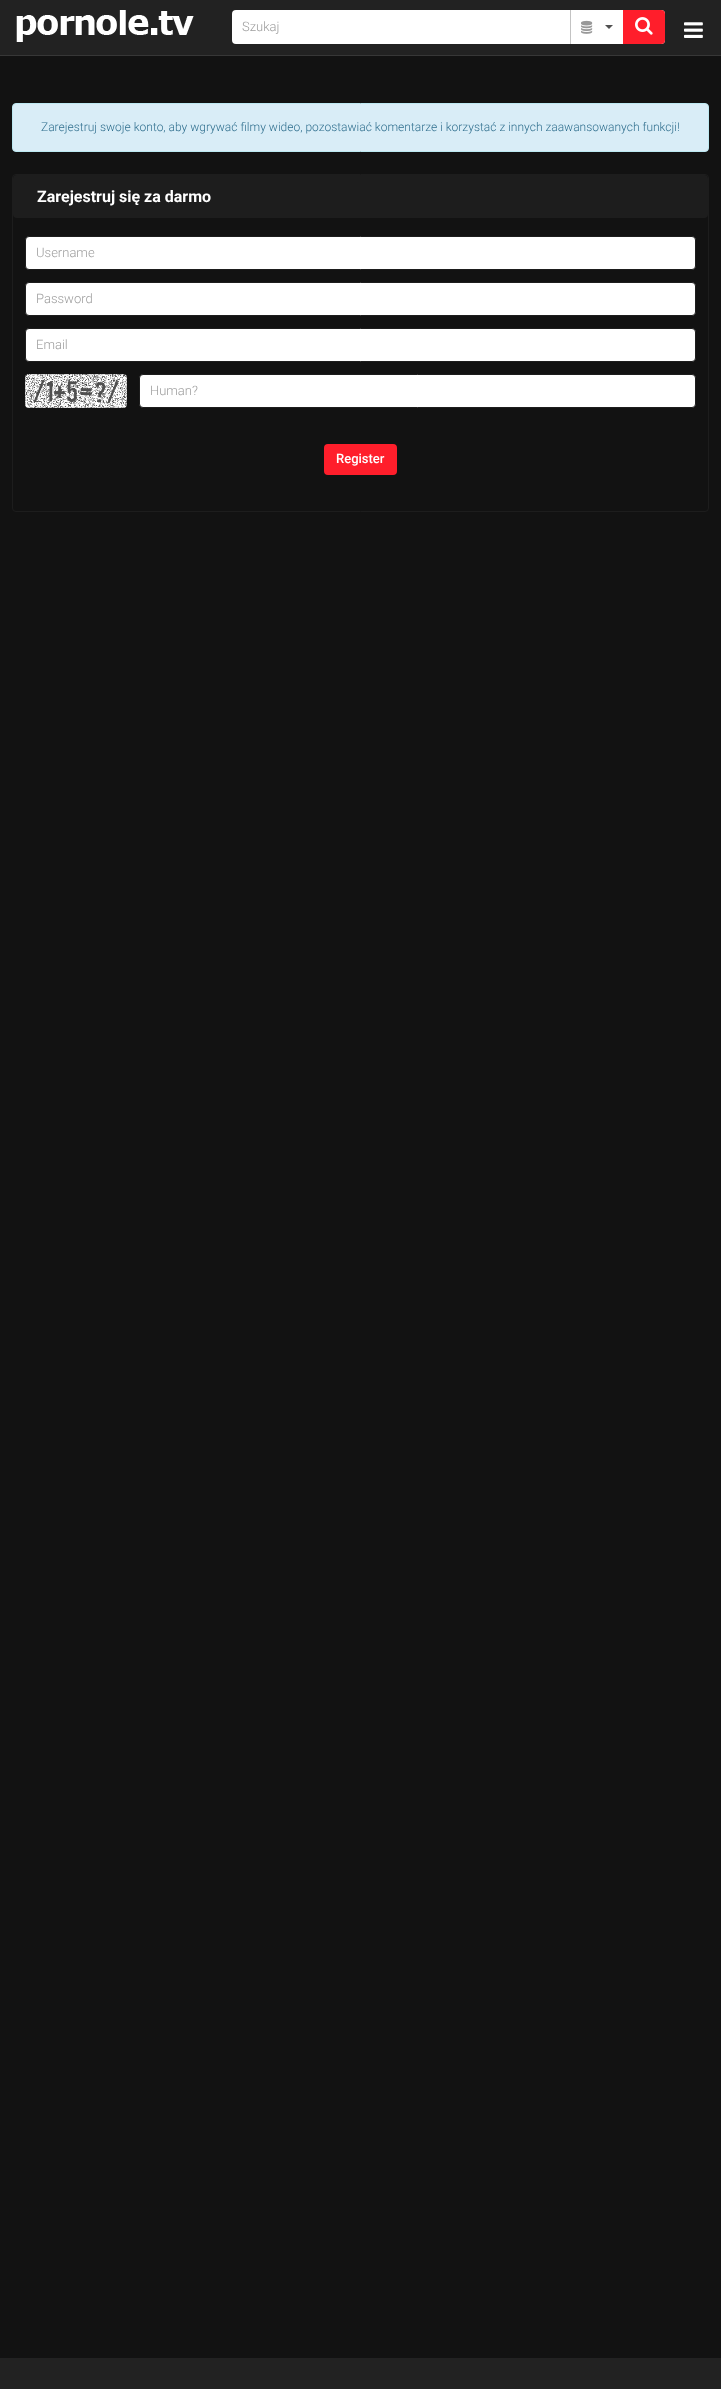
<!DOCTYPE html>
<meta charset="utf-8">
<style>body { margin: 0 } canvas { display: block }</style>
<canvas id="canvas" width="721" height="2389"></canvas>
<script type="module">
  const canvas = document.getElementById("canvas");
  const ctx = canvas.getContext("2d");
  ctx.miterLimit = 4;
  ctx.fontKerning = "normal";
  async function loadImage(src) {
    const img = new Image();
    img.src = src;
    await img.decode();
    return img;
  }

  ctx.fillStyle = "#121212";
  ctx.fillRect(0, 0, 721, 2389);
  ctx.fillStyle = "#222222";
  ctx.fillRect(0, 0, 721, 55);
  ctx.drawImage(await loadImage("img1.png"), 16, 10, 178, 32);
  ctx.fillStyle = "#ffffff";
  ctx.beginPath();
  ctx.roundRect(232, 10, 433, 34, 4);
  ctx.fill();
  ctx.font = "300 13px Roboto";
  ctx.fillStyle = "#9d9d9d";
  ctx.fillText("Szukaj", 242, 31);
  ctx.fillStyle = "#c3c3c3";
  ctx.fillRect(570, 10, 1, 34);
  ctx.drawImage(await loadImage("img2.png"), 581, 20, 12, 14);
  ctx.fillStyle = "#505050";
  ctx.beginPath();
  ctx.moveTo(605, 25);
  ctx.lineTo(613, 25);
  ctx.lineTo(609, 29);
  ctx.closePath();
  ctx.fill();
  ctx.fillStyle = "#ff1e2b";
  ctx.beginPath();
  ctx.roundRect(623, 10, 42, 34, [0, 4, 4, 0]);
  ctx.fill();
  ctx.drawImage(await loadImage("img3.png"), 635, 17, 18, 18);
  ctx.drawImage(await loadImage("img4.png"), 684, 22, 19, 16);
  ctx.fillStyle = "#373737";
  ctx.fillRect(0, 55, 721, 1);
  ctx.fillStyle = "#d9edf7";
  ctx.beginPath();
  ctx.roundRect(12.5, 103.5, 696, 48, 3.5);
  ctx.fill();
  ctx.strokeStyle = "#bce8f1";
  ctx.stroke();
  ctx.font = "300 12px Roboto";
  ctx.fillStyle = "#31708f";
  ctx.fillText("Zarejestruj swoje konto, aby wgrywać filmy wideo, pozostawiać komentarze i korzystać z innych zaawansowanych funkcji!", 41, 131);
  ctx.beginPath();
  ctx.roundRect(12.5, 174.5, 696, 337, 3.5);
  ctx.strokeStyle = "#1d1d1d";
  ctx.stroke();
  ctx.fillStyle = "#1d1d1d";
  ctx.beginPath();
  ctx.roundRect(13, 175, 695, 43, 4);
  ctx.fill();
  ctx.font = "bold 16px Roboto";
  ctx.fillStyle = "#ffffff";
  ctx.fillText("Zarejestruj się za darmo", 37, 202);
  ctx.beginPath();
  ctx.roundRect(25.5, 236.5, 670, 33, 3.5);
  ctx.fill();
  ctx.stroke();
  ctx.font = "300 13px Roboto";
  ctx.fillStyle = "#9d9d9d";
  ctx.fillText("Username", 36, 257);
  ctx.fillStyle = "#ffffff";
  ctx.beginPath();
  ctx.roundRect(25.5, 282.5, 670, 33, 3.5);
  ctx.fill();
  ctx.stroke();
  ctx.fillStyle = "#9d9d9d";
  ctx.fillText("Password", 36, 303);
  ctx.fillStyle = "#ffffff";
  ctx.beginPath();
  ctx.roundRect(25.5, 328.5, 670, 33, 3.5);
  ctx.fill();
  ctx.stroke();
  ctx.fillStyle = "#9d9d9d";
  ctx.fillText("Email", 36, 349);
  ctx.drawImage(await loadImage("img5.png"), 25, 374, 102, 34);
  ctx.fillStyle = "#ffffff";
  ctx.beginPath();
  ctx.roundRect(139.5, 374.5, 556, 33, 3.5);
  ctx.fill();
  ctx.stroke();
  ctx.fillStyle = "#9d9d9d";
  ctx.fillText("Human?", 150, 395);
  ctx.fillStyle = "#ff1e2b";
  ctx.beginPath();
  ctx.roundRect(324, 444, 73, 31, 4);
  ctx.fill();
  ctx.font = "500 13px Roboto";
  ctx.fillStyle = "#ffffff";
  ctx.fillText("Register", 336, 463);
  ctx.fillStyle = "#222222";
  ctx.fillRect(0, 2358, 721, 31);
</script>
